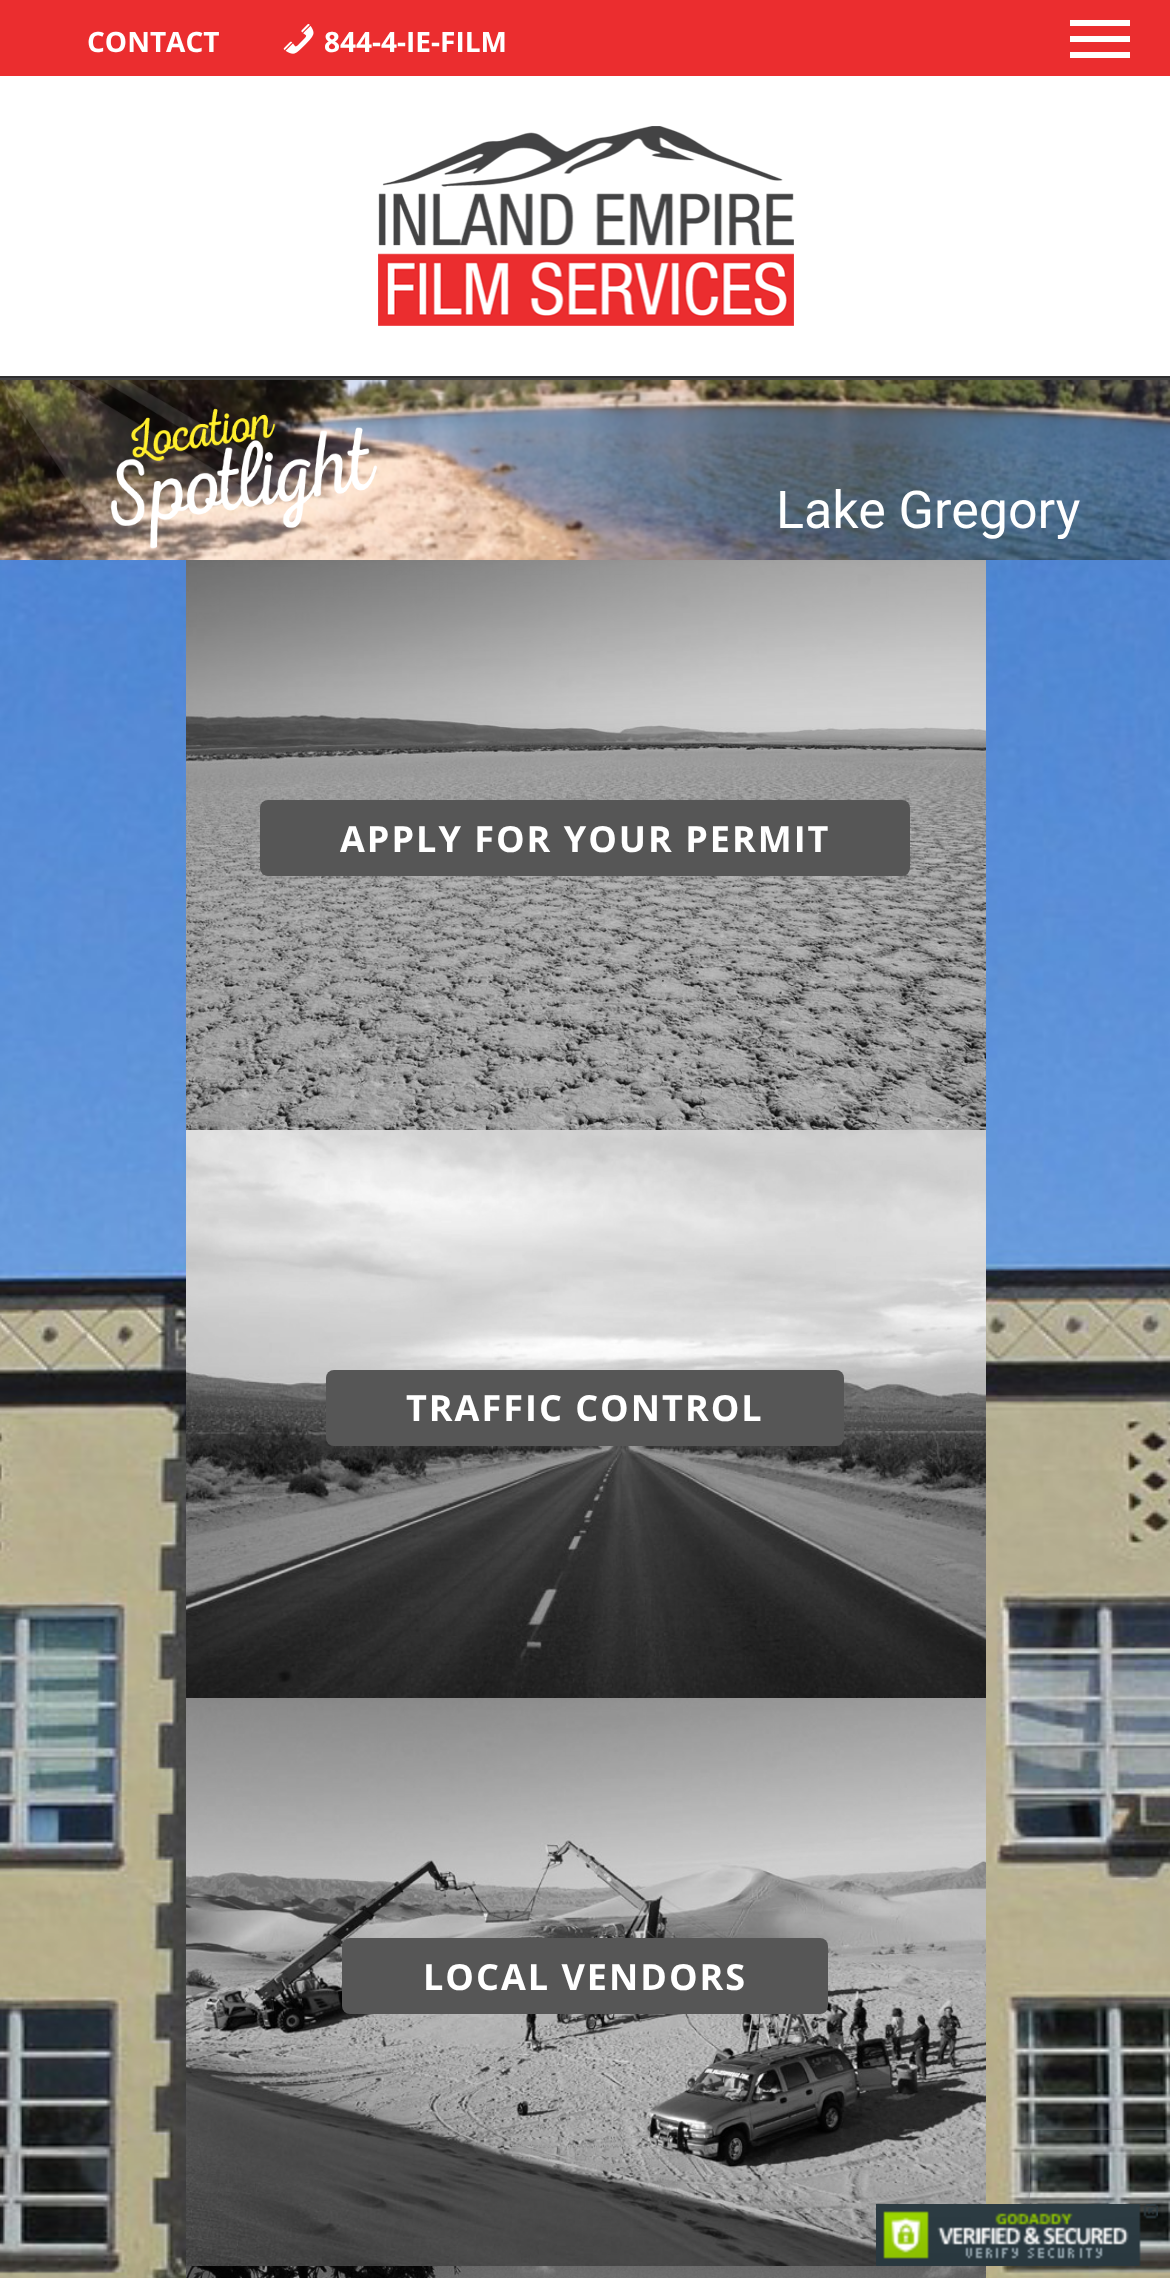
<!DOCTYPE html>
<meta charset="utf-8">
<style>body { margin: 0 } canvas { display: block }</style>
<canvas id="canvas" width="1170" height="2278"></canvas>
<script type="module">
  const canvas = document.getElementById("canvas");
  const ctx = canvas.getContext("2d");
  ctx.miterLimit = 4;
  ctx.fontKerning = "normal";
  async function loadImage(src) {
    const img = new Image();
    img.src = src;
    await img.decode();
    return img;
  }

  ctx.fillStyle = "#eb2d2f";
  ctx.fillRect(0, 0, 1170, 2278);
  ctx.fillStyle = "#ffffff";
  ctx.fillRect(0, 76, 1170, 300);
  ctx.fillStyle = "#434345";
  ctx.fillRect(0, 378, 1170, 2);
  ctx.fillStyle = "#ffffff";
  ctx.fillRect(1070, 20, 60, 6);
  ctx.fillRect(1070, 36, 60, 6);
  ctx.fillRect(1070, 52, 60, 6);
  ctx.fillStyle = "#2f2f30";
  ctx.fillRect(0, 376, 1170, 2);
  ctx.drawImage(await loadImage("img1.png"), 378, 126, 416, 200);
  ctx.font = "bold 28px Open Sans";
  ctx.fillStyle = "#ffffff";
  ctx.fillText("CONTACT", 87, 52);
  ctx.drawImage(await loadImage("img2.png"), 283, 23, 31, 31);
  ctx.fillText("844-4-IE-FILM", 324, 52);
  ctx.drawImage(await loadImage("img3.png"), 0, 380, 1170, 180);
  ctx.drawImage(await loadImage("img4.png"), 1, 380, 432, 180);
  ctx.drawImage(await loadImage("img5.png"), 111, 408, 267, 141);
  ctx.font = "52px Roboto";
  ctx.fillText("Lake Gregory", 776, 528);
  ctx.drawImage(await loadImage("img6.png"), 0, 560, 1170, 1718);
  ctx.drawImage(await loadImage("img7.png"), 186, 560, 800, 570);
  ctx.fillStyle = "#565656";
  ctx.beginPath();
  ctx.roundRect(260, 800, 650, 76, 8);
  ctx.fill();
  ctx.letterSpacing = "2px";
  ctx.font = "bold 36px Open Sans";
  ctx.fillStyle = "#ffffff";
  ctx.fillText("APPLY FOR YOUR PERMIT", 340, 852);
  ctx.drawImage(await loadImage("img8.png"), 186, 1130, 800, 568);
  ctx.fillStyle = "#565656";
  ctx.beginPath();
  ctx.roundRect(326, 1370, 518, 76, 8);
  ctx.fill();
  ctx.fillStyle = "#ffffff";
  ctx.fillText("TRAFFIC CONTROL", 406, 1421);
  ctx.drawImage(await loadImage("img9.png"), 186, 1698, 800, 568);
  ctx.fillStyle = "#565656";
  ctx.beginPath();
  ctx.roundRect(342, 1938, 486, 76, 8);
  ctx.fill();
  ctx.fillStyle = "#ffffff";
  ctx.fillText("LOCAL VENDORS", 423, 1990);
  ctx.drawImage(await loadImage("img10.png"), 186, 2266, 800, 12);
  ctx.save();
  ctx.beginPath();
  ctx.moveTo(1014, 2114);
  ctx.lineTo(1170, 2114);
  ctx.lineTo(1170, 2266);
  ctx.lineTo(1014, 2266);
  ctx.closePath();
  ctx.moveTo(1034, 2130);
  ctx.lineTo(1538, 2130);
  ctx.bezierCurveTo(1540, 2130, 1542, 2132, 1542, 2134);
  ctx.lineTo(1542, 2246);
  ctx.bezierCurveTo(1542, 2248, 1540, 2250, 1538, 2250);
  ctx.lineTo(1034, 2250);
  ctx.bezierCurveTo(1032, 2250, 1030, 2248, 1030, 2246);
  ctx.lineTo(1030, 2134);
  ctx.bezierCurveTo(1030, 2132, 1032, 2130, 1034, 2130);
  ctx.closePath();
  ctx.clip("evenodd");
  ctx.fillStyle = "#808080";
  ctx.filter = "blur(5px)";
  ctx.beginPath();
  ctx.roundRect(1030, 2130, 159, 120, 4);
  ctx.fill();
  ctx.filter = "none";
  ctx.restore();
  ctx.drawImage(await loadImage("img11.png"), 876, 2204, 282, 62);
</script>
